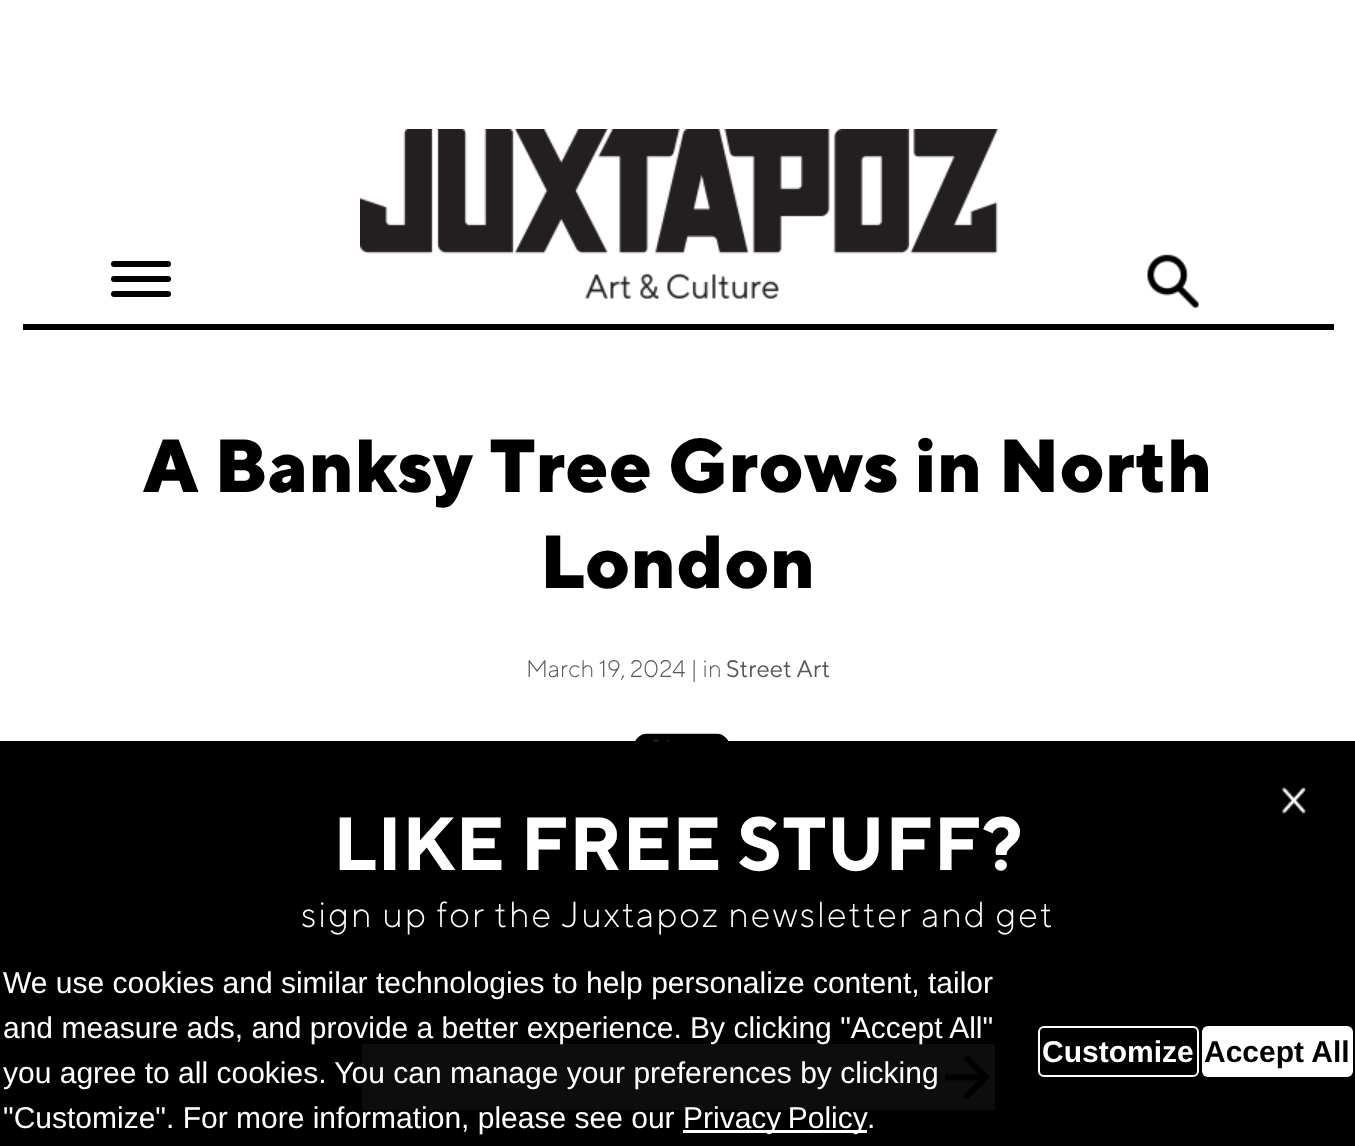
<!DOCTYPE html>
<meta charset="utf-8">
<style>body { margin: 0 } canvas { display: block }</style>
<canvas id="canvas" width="1355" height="1146"></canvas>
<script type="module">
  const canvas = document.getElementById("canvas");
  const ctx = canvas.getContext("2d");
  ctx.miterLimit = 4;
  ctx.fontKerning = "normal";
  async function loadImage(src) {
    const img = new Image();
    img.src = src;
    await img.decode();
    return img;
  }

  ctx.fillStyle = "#ffffff";
  ctx.fillRect(0, 0, 1355, 1146);
  ctx.fillStyle = "#000000";
  ctx.fillRect(23, 324, 1311, 6);
  ctx.beginPath();
  ctx.roundRect(111, 261, 60, 6, 3);
  ctx.fill();
  ctx.beginPath();
  ctx.roundRect(111, 276, 60, 6, 3);
  ctx.fill();
  ctx.beginPath();
  ctx.roundRect(111, 291, 60, 6, 3);
  ctx.fill();
  ctx.drawImage(await loadImage("img1.png"), 360, 129, 638, 170);
  ctx.drawImage(await loadImage("img2.png"), 1147, 254, 52, 54);
  ctx.font = "75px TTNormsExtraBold";
  ctx.fillText("A Banksy Tree Grows in North", 143, 492);
  ctx.fillText("London", 540, 588);
  ctx.font = "24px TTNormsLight";
  ctx.fillStyle = "#575757";
  ctx.fillText("March 19, 2024 | in", 526, 677);
  ctx.font = "24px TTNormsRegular";
  ctx.fillText("Street Art", 726, 677);
  ctx.drawImage(await loadImage("img3.png"), 635, 733, 94, 8);
  ctx.fillStyle = "#000000";
  ctx.fillRect(0, 741, 1355, 405);
  ctx.drawImage(await loadImage("img4.png"), 1282, 787, 24, 27);
  ctx.font = "75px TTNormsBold";
  ctx.fillStyle = "#ffffff";
  ctx.fillText("LIKE FREE STUFF?", 333, 870);
  ctx.letterSpacing = "1.8px";
  ctx.font = "36px TTNormsLight";
  ctx.fillText("sign up for the Juxtapoz newsletter and get", 301, 927);
  ctx.beginPath();
  ctx.roundRect(362, 1044, 633, 66, 1);
  ctx.fill();
  ctx.drawImage(await loadImage("img5.png"), 944, 1055, 46, 45);
  ctx.fillStyle = "rgba(0, 0, 0, 0.95)";
  ctx.fillRect(362, 1044, 633, 66);
  ctx.letterSpacing = "0px";
  ctx.font = "30px Liberation Sans";
  ctx.fillStyle = "#ffffff";
  ctx.fillText("We use cookies and similar technologies to help personalize content, tailor", 3, 993);
  ctx.fillText("and measure ads, and provide a better experience. By clicking \"Accept All\"", 3, 1038);
  ctx.fillText("you agree to all cookies. You can manage your preferences by clicking", 3, 1083);
  ctx.fillText("\"Customize\". For more information, please see our", 3, 1128);
  ctx.fillRect(683, 1130, 184, 3);
  ctx.wordSpacing = "-2px";
  ctx.fillText("Privacy Policy", 683, 1128);
  ctx.wordSpacing = "0px";
  ctx.fillText(".", 867, 1128);
  ctx.beginPath();
  ctx.roundRect(1039, 1027, 159, 49, 5);
  ctx.strokeStyle = "#ffffff";
  ctx.lineWidth = 2;
  ctx.stroke();
  ctx.font = "bold 30px Liberation Sans";
  ctx.fillText("Customize", 1042, 1062);
  ctx.beginPath();
  ctx.roundRect(1202, 1026, 151, 51, 6);
  ctx.fill();
  ctx.fillStyle = "#000000";
  ctx.fillText("Accept All", 1204, 1062);
</script>
